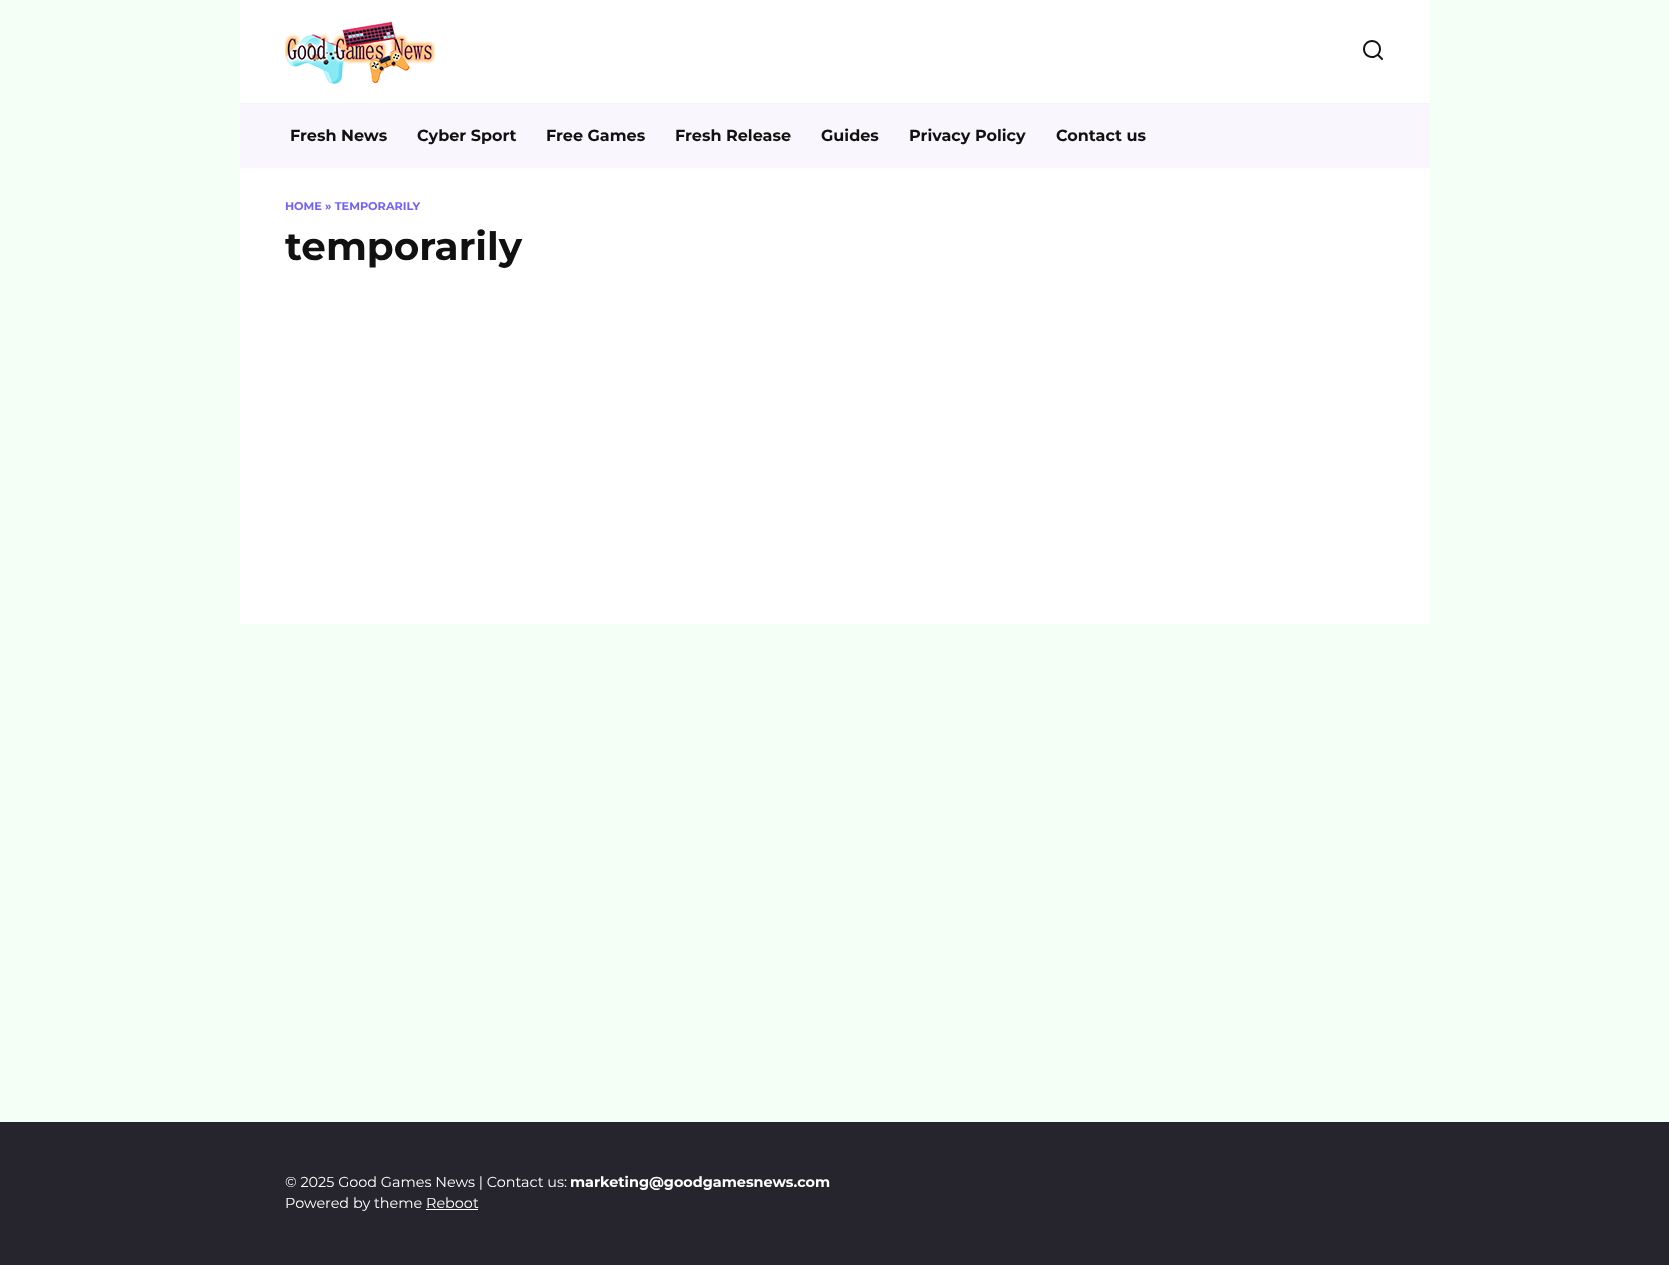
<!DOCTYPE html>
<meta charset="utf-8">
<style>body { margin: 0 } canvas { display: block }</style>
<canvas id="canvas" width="1669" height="1265"></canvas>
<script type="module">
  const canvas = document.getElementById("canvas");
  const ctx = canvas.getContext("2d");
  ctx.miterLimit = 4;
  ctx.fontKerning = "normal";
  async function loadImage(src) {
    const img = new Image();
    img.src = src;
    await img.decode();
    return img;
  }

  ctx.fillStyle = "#f4fff5";
  ctx.fillRect(0, 0, 1669, 1265);
  ctx.fillStyle = "#ffffff";
  ctx.fillRect(240, 0, 1190, 103);
  ctx.fillStyle = "#f2f5f9";
  ctx.fillRect(240, 103, 1190, 1);
  ctx.drawImage(await loadImage("img1.png"), 285, 21, 150, 63);
  ctx.font = "24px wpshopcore";
  ctx.fillStyle = "#111111";
  ctx.fillText("🔍", 1361, 60);
  ctx.fillStyle = "#f9f6fd";
  ctx.fillRect(240, 104, 1190, 64);
  ctx.font = "bold 16px Montserrat";
  ctx.fillStyle = "#111111";
  ctx.fillText("Fresh News", 290, 141);
  ctx.fillText("Cyber Sport", 417, 141);
  ctx.fillText("Free Games", 546, 141);
  ctx.fillText("Fresh Release", 675, 141);
  ctx.fillText("Guides", 821, 141);
  ctx.fillText("Privacy Policy", 909, 141);
  ctx.fillText("Contact us", 1056, 141);
  ctx.fillStyle = "#ffffff";
  ctx.fillRect(240, 168, 1190, 456);
  ctx.font = "bold 11.25px Montserrat";
  ctx.fillStyle = "#7162fe";
  ctx.fillText("HOME » TEMPORARILY", 285, 210);
  ctx.font = "bold 39px Montserrat";
  ctx.fillStyle = "#111111";
  ctx.fillText("temporarily", 285, 260);
  ctx.fillStyle = "#26252d";
  ctx.fillRect(0, 1122, 1669, 143);
  ctx.font = "14.4px Montserrat";
  ctx.fillStyle = "#ffffff";
  ctx.fillText("© 2025 Good Games News | Contact us:", 285, 1187);
  ctx.font = "bold 14.4px Montserrat";
  ctx.fillText("marketing@goodgamesnews.com", 570, 1187);
  ctx.font = "14.4px Montserrat";
  ctx.fillText("Powered by theme Reboot", 285, 1208);
  ctx.fillRect(426, 1209, 52, 1);
</script>
